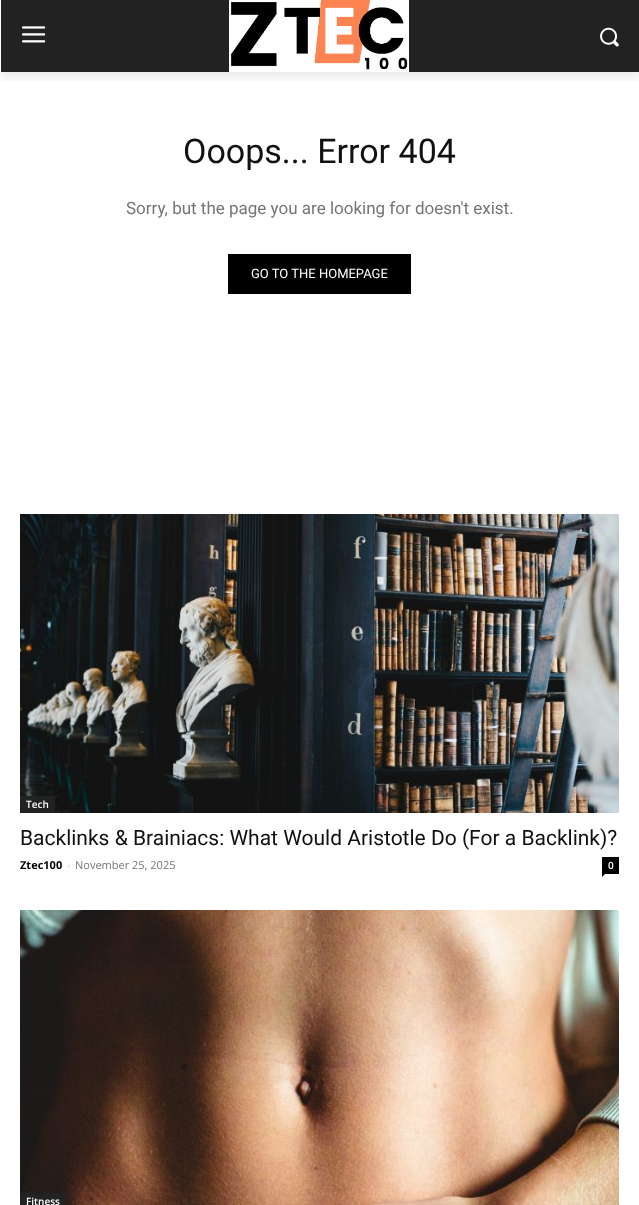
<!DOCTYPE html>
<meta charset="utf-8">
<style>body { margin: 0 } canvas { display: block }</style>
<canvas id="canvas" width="639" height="1205"></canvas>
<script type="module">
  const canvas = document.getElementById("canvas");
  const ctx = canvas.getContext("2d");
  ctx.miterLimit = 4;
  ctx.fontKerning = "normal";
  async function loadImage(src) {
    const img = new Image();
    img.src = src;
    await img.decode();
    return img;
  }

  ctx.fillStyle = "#ffffff";
  ctx.fillRect(0, 0, 639, 1205);
  ctx.fillStyle = "#222222";
  ctx.fillRect(1, 0, 638, 72);
  ctx.drawImage(await loadImage("img1.png"), 22, 26, 24, 17);
  ctx.drawImage(await loadImage("img2.png"), 229, 0, 180, 72);
  ctx.drawImage(await loadImage("img3.png"), 600, 27, 19, 20);
  ctx.save();
  ctx.beginPath();
  ctx.rect(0, 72, 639, 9);
  ctx.clip();
  ctx.fillStyle = "rgba(0, 0, 0, 0.08)";
  ctx.filter = "blur(4px)";
  ctx.beginPath();
  ctx.rect(1, 6, 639, 72);
  ctx.fill();
  ctx.filter = "none";
  ctx.restore();
  ctx.font = "34px Roboto";
  ctx.fillStyle = "#111111";
  ctx.fillText("Ooops... Error 404", 183, 163);
  ctx.font = "17px Roboto";
  ctx.fillStyle = "#757575";
  ctx.fillText("Sorry, but the page you are looking for doesn't exist.", 126, 214);
  ctx.fillStyle = "#000000";
  ctx.fillRect(228, 254, 183, 40);
  ctx.font = "13px Roboto";
  ctx.fillStyle = "#ffffff";
  ctx.fillText("GO TO THE HOMEPAGE", 251, 278);
  ctx.drawImage(await loadImage("img4.png"), 20, 514, 599, 299);
  ctx.fillStyle = "#222222";
  ctx.fillRect(20, 796, 35, 17);
  ctx.font = "600 10px Open Sans";
  ctx.fillStyle = "#ffffff";
  ctx.fillText("Tech", 26, 808);
  ctx.font = "21px Roboto";
  ctx.fillStyle = "#111111";
  ctx.fillText("Backlinks & Brainiacs: What Would Aristotle Do (For a Backlink)?", 20, 845);
  ctx.font = "bold 11px Open Sans";
  ctx.fillStyle = "#000000";
  ctx.fillText("Ztec100", 20, 869);
  ctx.font = "11px Open Sans";
  ctx.fillStyle = "#cccccc";
  ctx.fillText("-", 67, 869);
  ctx.fillStyle = "#757575";
  ctx.fillText("November 25, 2025", 75, 869);
  ctx.fillStyle = "#000000";
  ctx.fillRect(602, 857, 17, 17);
  ctx.font = "600 10px Open Sans";
  ctx.fillStyle = "#ffffff";
  ctx.fillText("0", 608, 869);
  ctx.fillStyle = "#000000";
  ctx.beginPath();
  ctx.moveTo(602, 874);
  ctx.lineTo(605, 874);
  ctx.lineTo(602, 877);
  ctx.closePath();
  ctx.fill();
  ctx.drawImage(await loadImage("img5.png"), 20, 910, 599, 295);
  ctx.fillStyle = "#222222";
  ctx.fillRect(20, 1193, 46, 12);
  ctx.fillStyle = "#ffffff";
  ctx.fillText("Fitness", 26, 1205);
</script>
